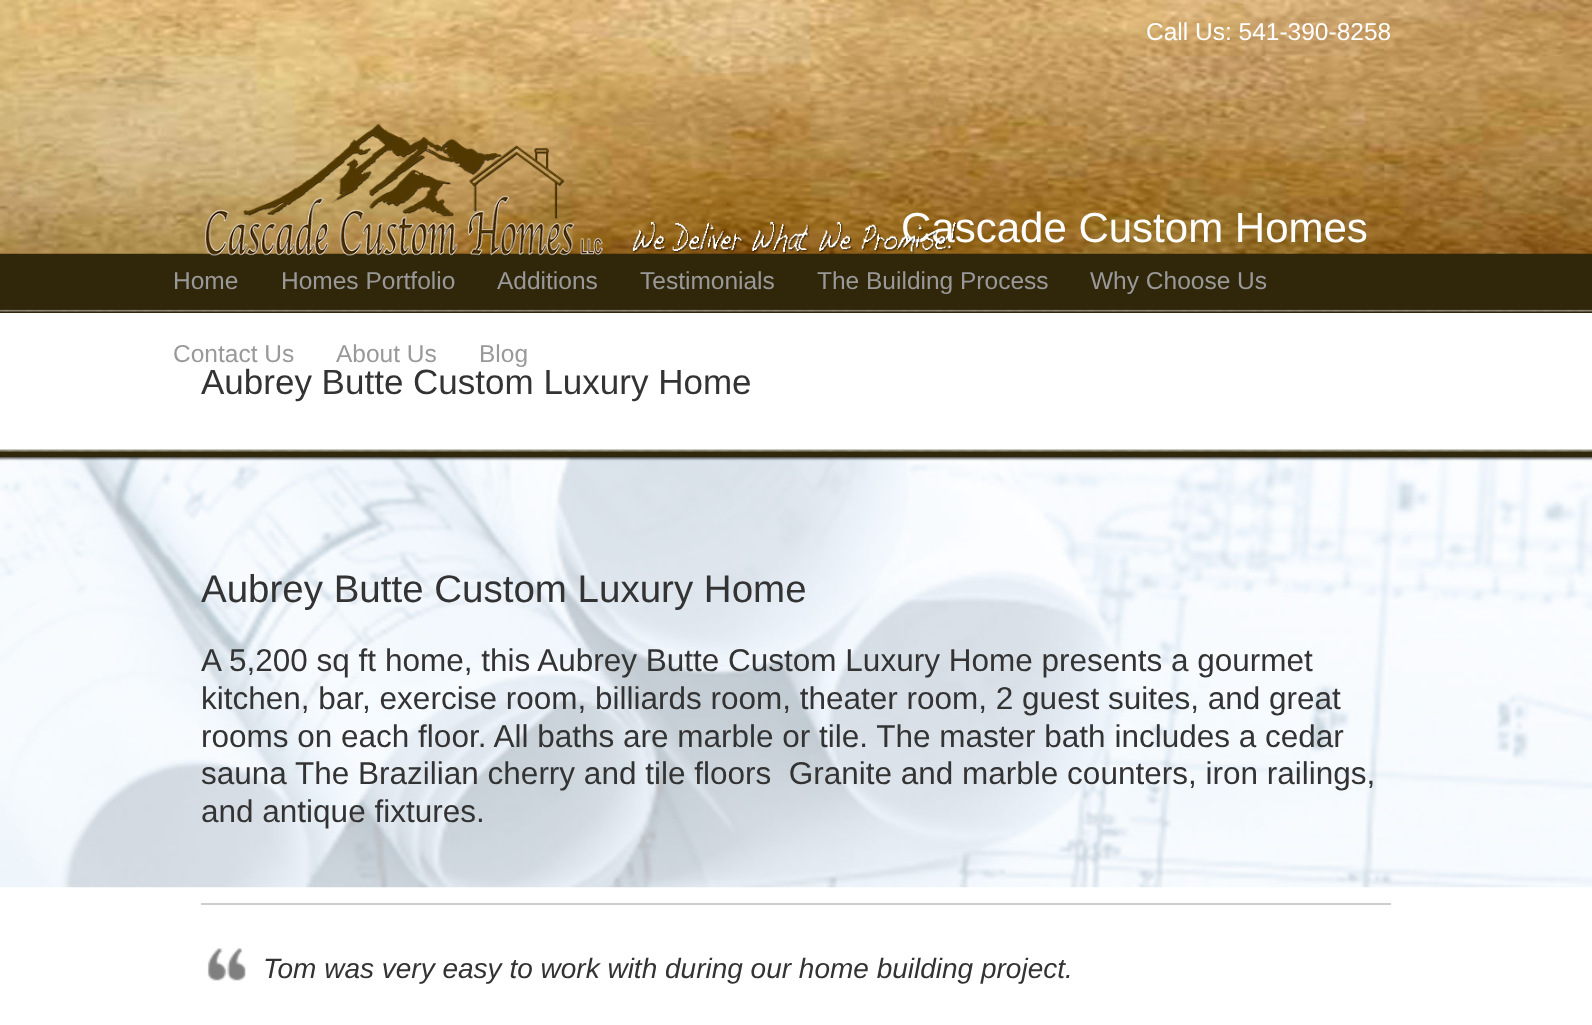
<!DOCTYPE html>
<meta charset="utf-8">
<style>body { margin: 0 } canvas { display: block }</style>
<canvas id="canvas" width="1592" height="1025"></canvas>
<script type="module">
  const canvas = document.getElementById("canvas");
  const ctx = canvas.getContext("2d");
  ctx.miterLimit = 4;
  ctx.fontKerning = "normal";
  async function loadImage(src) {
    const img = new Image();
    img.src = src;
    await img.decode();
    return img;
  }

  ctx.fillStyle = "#ffffff";
  ctx.fillRect(0, 0, 1592, 1025);
  ctx.fillStyle = "#30270b";
  ctx.fillRect(0, 253, 1592, 60);
  ctx.drawImage(await loadImage("img1.png"), 0, 0, 1592, 254);
  ctx.font = "24.5px Liberation Sans";
  ctx.fillStyle = "#ffffff";
  ctx.fillText("Call Us: 541-390-8258", 1146, 40);
  ctx.font = "42px Liberation Sans";
  ctx.fillText("Cascade Custom Homes", 901, 242);
  ctx.drawImage(await loadImage("img2.png"), 204, 124, 754, 132);
  ctx.font = "24.5px Liberation Sans";
  ctx.fillStyle = "#999999";
  ctx.fillText("Home", 173, 289);
  ctx.fillText("Homes Portfolio", 281, 289);
  ctx.fillText("Additions", 497, 289);
  ctx.fillText("Testimonials", 640, 289);
  ctx.fillText("The Building Process", 817, 289);
  ctx.fillText("Why Choose Us", 1090, 289);
  ctx.fillText("Contact Us", 173, 362);
  ctx.fillText("About Us", 336, 362);
  ctx.fillText("Blog", 479, 362);
  ctx.drawImage(await loadImage("img3.png"), 0, 309, 1592, 3);
  ctx.font = "35px Liberation Sans";
  ctx.fillStyle = "#333333";
  ctx.fillText("Aubrey Butte Custom Luxury Home", 201, 394);
  ctx.drawImage(await loadImage("img4.png"), 0, 449, 1592, 439);
  ctx.drawImage(await loadImage("img5.png"), 0, 450, 1592, 2);
  ctx.font = "38.5px Liberation Sans";
  ctx.fillText("Aubrey Butte Custom Luxury Home", 201, 602);
  ctx.font = "31.5px Liberation Sans";
  ctx.fillText("A 5,200 sq ft home, this Aubrey Butte Custom Luxury Home presents a gourmet", 201, 671);
  ctx.fillText("kitchen, bar, exercise room, billiards room, theater room, 2 guest suites, and great", 201, 709);
  ctx.fillText("rooms on each floor. All baths are marble or tile. The master bath includes a cedar", 201, 747);
  ctx.fillText("sauna The Brazilian cherry and tile floors  Granite and marble counters, iron railings,", 201, 784);
  ctx.fillText("and antique fixtures.", 201, 822);
  ctx.fillStyle = "#cccccc";
  ctx.fillRect(201, 903, 1190, 2);
  ctx.drawImage(await loadImage("img6.png"), 207, 948, 39, 33);
  ctx.font = "italic 28px Liberation Sans";
  ctx.fillStyle = "#333333";
  ctx.fillText("Tom was very easy to work with during our home building project.", 263, 978);
</script>
